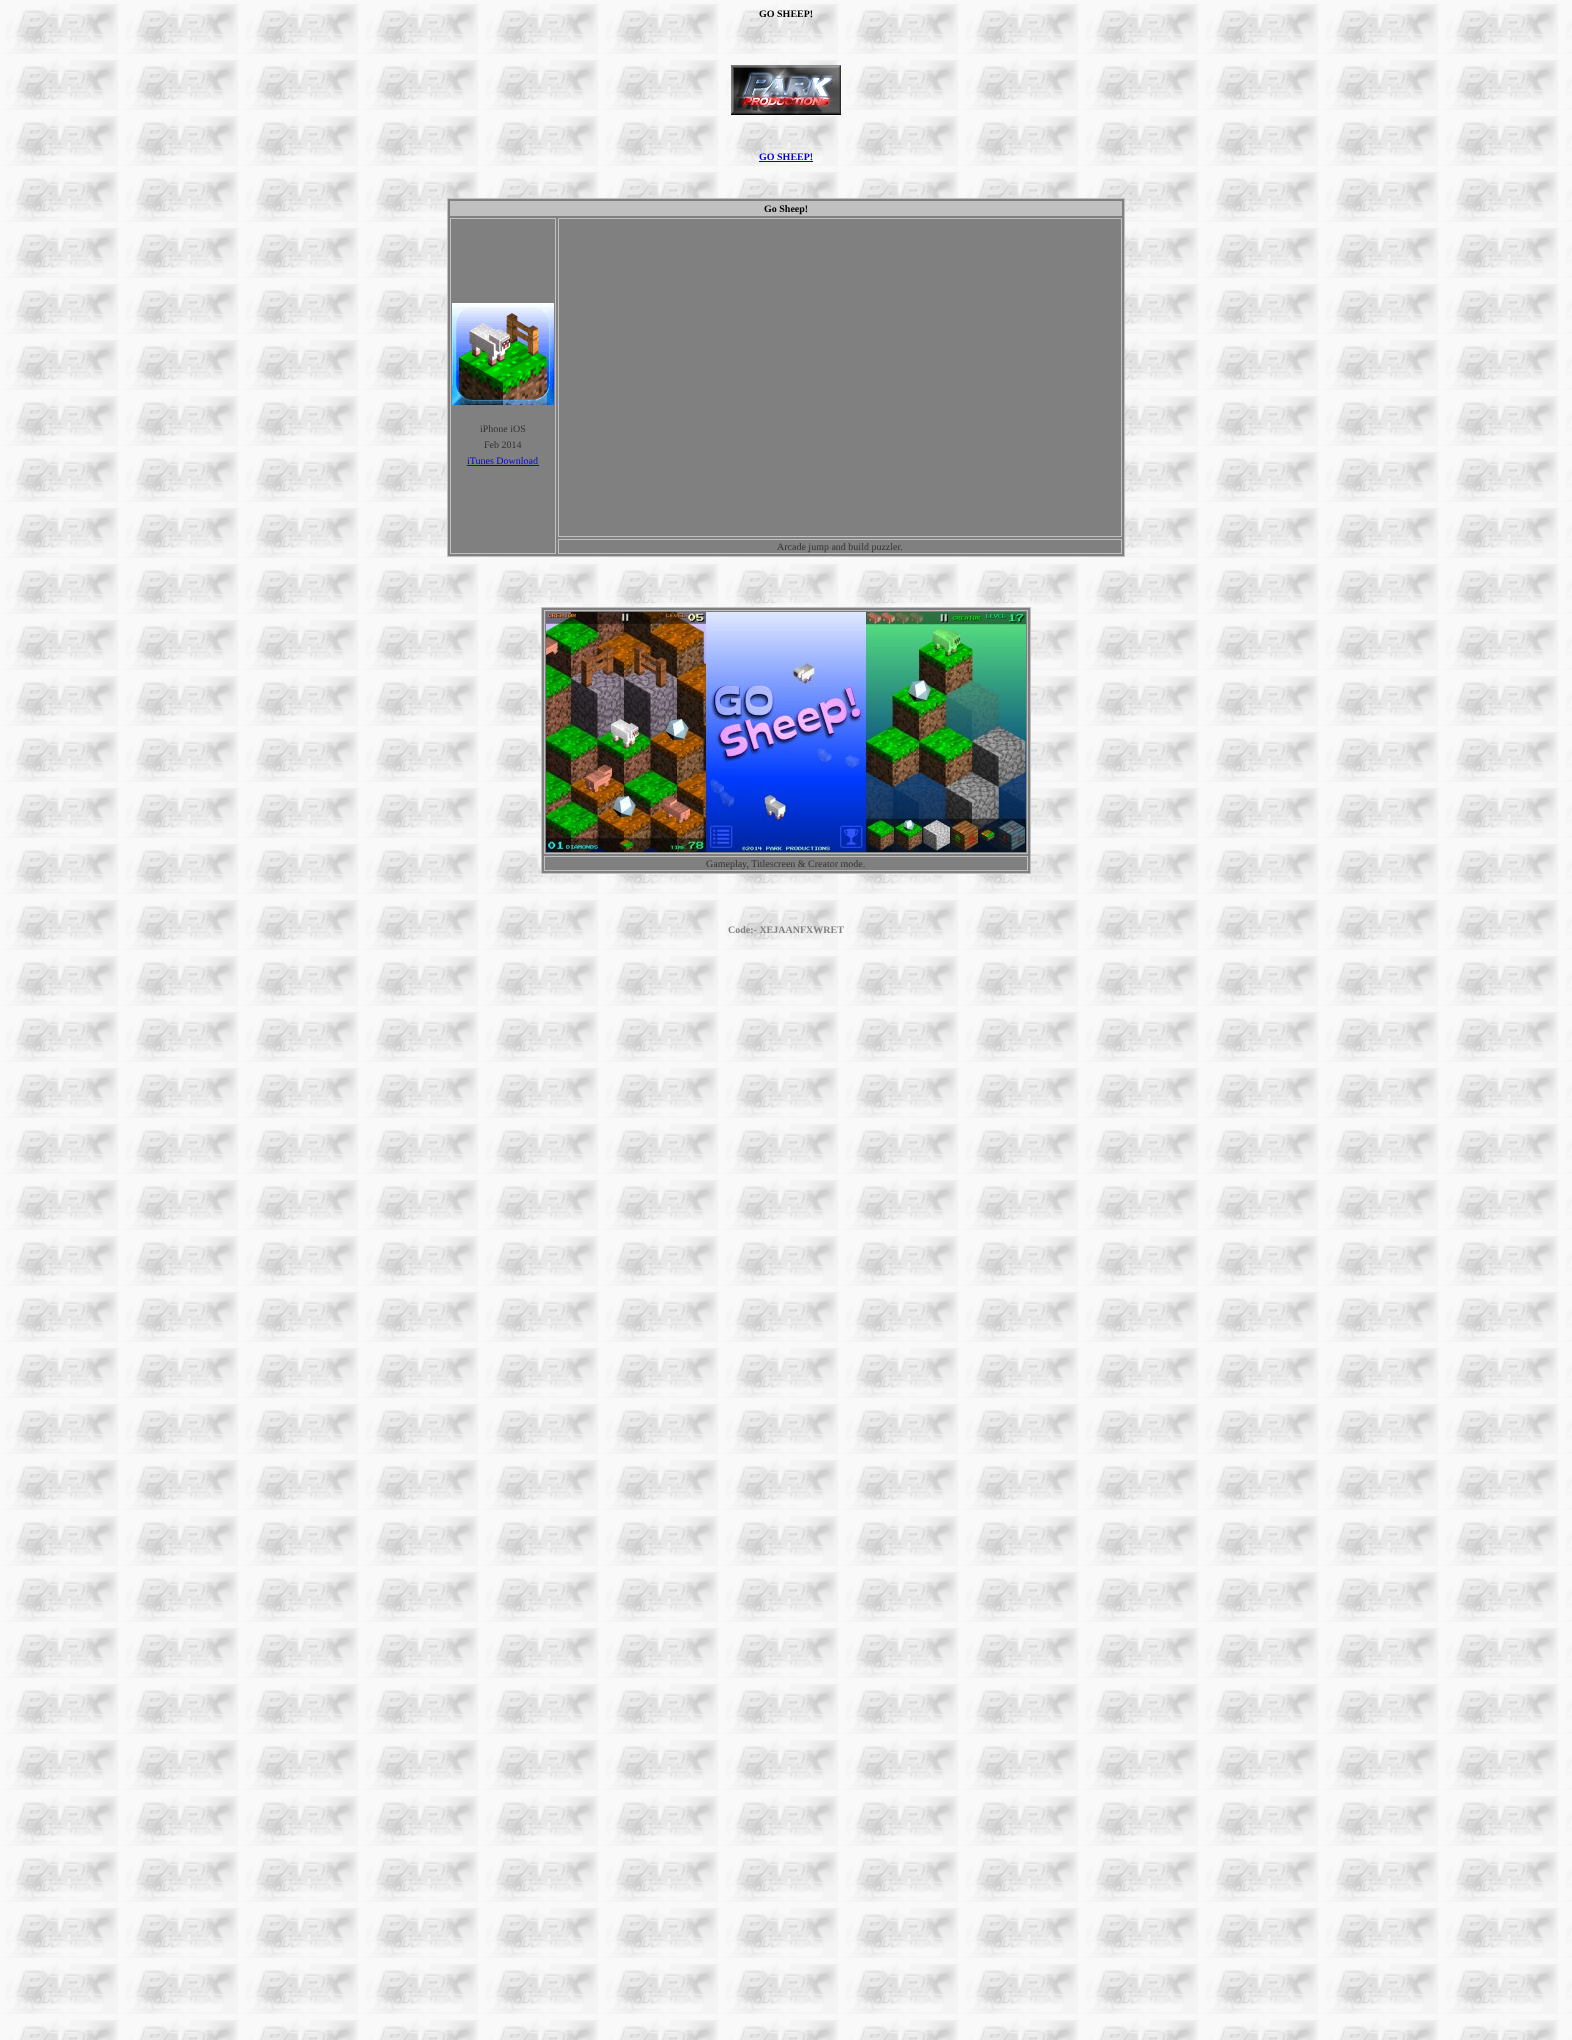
<!DOCTYPE html>
<meta charset="utf-8">
<style>body { margin: 0 } canvas { display: block }</style>
<canvas id="canvas" width="1572" height="2040"></canvas>
<script type="module">
  const canvas = document.getElementById("canvas");
  const ctx = canvas.getContext("2d");
  ctx.miterLimit = 4;
  ctx.fontKerning = "normal";
  async function loadImage(src) {
    const img = new Image();
    img.src = src;
    await img.decode();
    return img;
  }

  ctx.fillStyle = "#ffffff";
  ctx.fillRect(0, 0, 1572, 2040);
  ctx.drawImage(await loadImage("img1.png"), 0, 0, 1572, 2040);
  ctx.font = "bold 10px Liberation Serif";
  ctx.fillStyle = "#000000";
  ctx.fillText("GO SHEEP!", 759, 17);
  ctx.drawImage(await loadImage("img2.png"), 731, 65, 110, 50);
  ctx.fillStyle = "#0000ee";
  ctx.fillText("GO SHEEP!", 759, 160);
  ctx.fillRect(759, 161, 54, 1);
  ctx.fillStyle = "#808080";
  ctx.beginPath();
  ctx.rect(447.5, 198.5, 677, 358);
  ctx.fill();
  ctx.strokeStyle = "#c0c0c0";
  ctx.stroke();
  ctx.fillStyle = "#c0c0c0";
  ctx.fillRect(450, 201, 672, 15);
  ctx.fillStyle = "#000000";
  ctx.fillText("Go Sheep!", 764, 212);
  ctx.strokeRect(450.5, 218.5, 105, 335);
  ctx.drawImage(await loadImage("img3.png"), 452, 303, 102, 102);
  ctx.font = "10px Liberation Serif";
  ctx.fillStyle = "#333333";
  ctx.fillText("iPhone iOS", 480, 432);
  ctx.fillText("Feb 2014", 484, 448);
  ctx.fillStyle = "#0000ee";
  ctx.fillText("iTunes Download", 467, 464);
  ctx.fillRect(467, 465, 72, 1);
  ctx.strokeRect(558.5, 218.5, 563, 318);
  ctx.strokeRect(558.5, 539.5, 563, 14);
  ctx.fillStyle = "#333333";
  ctx.fillText("Arcade jump and build puzzler.", 777, 550);
  ctx.fillStyle = "#808080";
  ctx.beginPath();
  ctx.rect(541.5, 607.5, 489, 266);
  ctx.fill();
  ctx.stroke();
  ctx.strokeRect(544.5, 610.5, 483, 243);
  ctx.drawImage(await loadImage("img4.png"), 546, 612, 480, 240);
  ctx.strokeRect(544.5, 856.5, 483, 14);
  ctx.fillStyle = "#333333";
  ctx.fillText("Gameplay, Titlescreen & Creator mode.", 706, 867);
  ctx.font = "bold 10px Liberation Serif";
  ctx.fillStyle = "#808080";
  ctx.fillText("Code:- XEJAANFXWRET", 728, 933);
</script>
